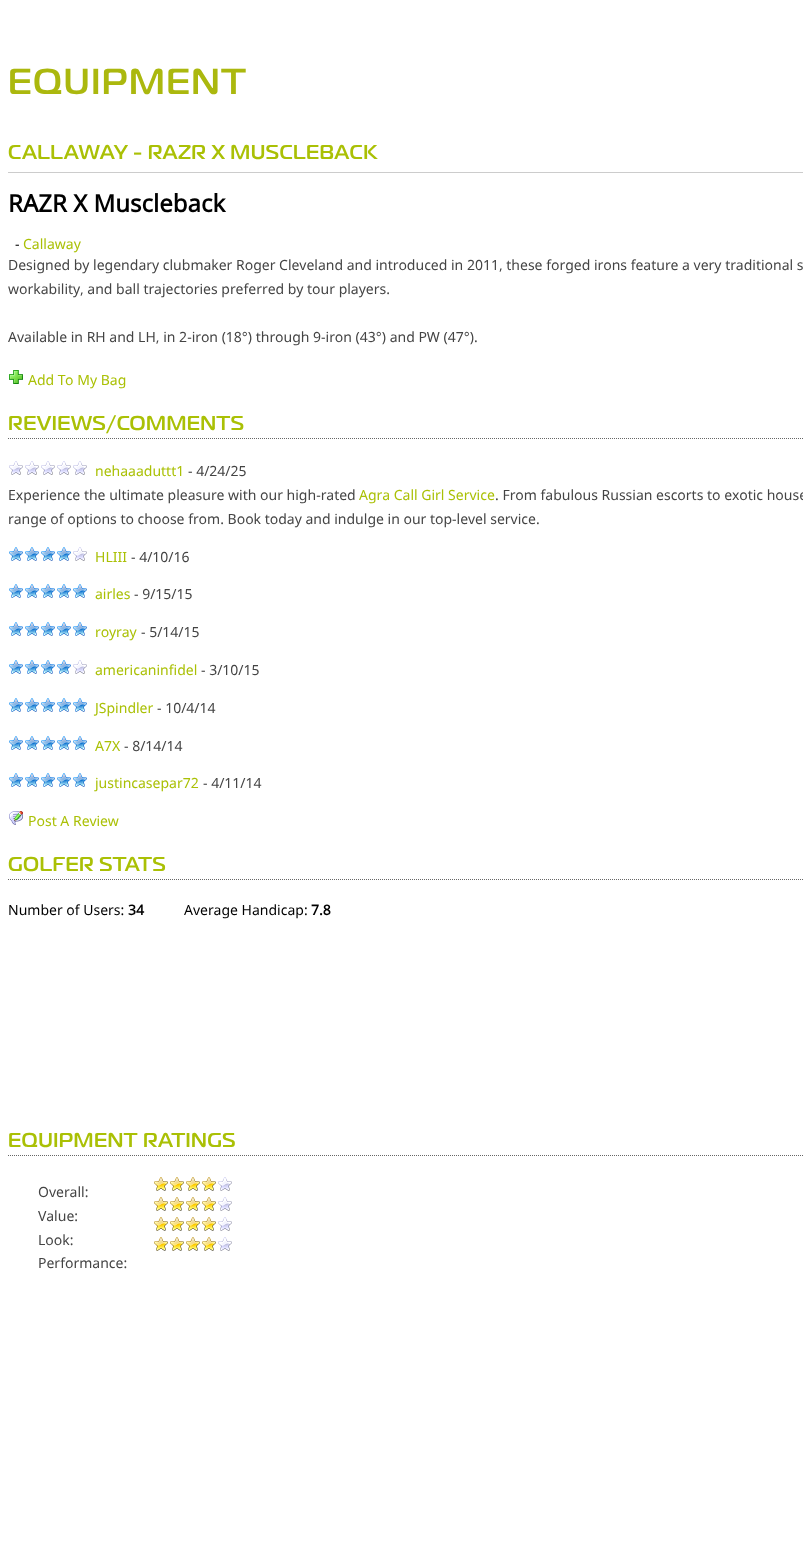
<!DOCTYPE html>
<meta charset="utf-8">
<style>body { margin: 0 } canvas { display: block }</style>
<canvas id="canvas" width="803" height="1561"></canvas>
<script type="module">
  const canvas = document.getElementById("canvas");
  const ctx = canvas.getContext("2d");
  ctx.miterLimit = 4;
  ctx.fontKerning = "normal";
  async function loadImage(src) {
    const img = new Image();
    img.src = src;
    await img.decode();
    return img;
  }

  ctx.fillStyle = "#ffffff";
  ctx.fillRect(0, 0, 803, 1561);
  ctx.letterSpacing = "1.5px";
  ctx.font = "500 36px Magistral";
  ctx.fillStyle = "#abb80e";
  ctx.fillText("EQUIPMENT", 8, 94);
  ctx.letterSpacing = "0.5px";
  ctx.font = "500 20px Magistral";
  ctx.fillStyle = "#aac005";
  ctx.fillText("CALLAWAY - RAZR X MUSCLEBACK", 8, 159);
  ctx.fillStyle = "#cccccc";
  ctx.fillRect(8, 172, 795, 1);
  ctx.letterSpacing = "0px";
  ctx.font = "bold 24px Noto Sans";
  ctx.fillStyle = "#000000";
  ctx.fillText("RAZR X Muscleback", 8, 212);
  ctx.font = "14px Noto Sans";
  ctx.fillText("-", 15, 249);
  ctx.fillStyle = "#aac005";
  ctx.fillText("Callaway", 23, 249);
  ctx.fillStyle = "#444444";
  ctx.fillText("Designed by legendary clubmaker Roger Cleveland and introduced in 2011, these forged irons feature a very traditional s", 8, 270);
  ctx.fillText("workability, and ball trajectories preferred by tour players.", 8, 294);
  ctx.fillText("Available in RH and LH, in 2-iron (18°) through 9-iron (43°) and PW (47°).", 8, 342);
  ctx.drawImage(await loadImage("img1.png"), 9, 370, 14, 14);
  ctx.fillStyle = "#aac005";
  ctx.fillText("Add To My Bag", 28, 385);
  ctx.beginPath();
  ctx.moveTo(8, 438.5);
  ctx.lineTo(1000, 438.5);
  ctx.strokeStyle = "#666666";
  ctx.setLineDash([1, 1]);
  ctx.stroke();
  ctx.letterSpacing = "0.5px";
  ctx.font = "500 20px Magistral";
  ctx.fillText("REVIEWS/COMMENTS", 8, 430);
  ctx.drawImage(await loadImage("img2.png"), 9, 461, 14, 14);
  ctx.drawImage(await loadImage("img2.png"), 25, 461, 14, 14);
  ctx.drawImage(await loadImage("img2.png"), 41, 461, 14, 14);
  ctx.drawImage(await loadImage("img2.png"), 57, 461, 14, 14);
  ctx.drawImage(await loadImage("img2.png"), 73, 461, 14, 14);
  ctx.letterSpacing = "0px";
  ctx.font = "14px Noto Sans";
  ctx.fillText("nehaaaduttt1", 95, 476);
  ctx.fillStyle = "#444444";
  ctx.fillText("- 4/24/25", 188, 476);
  ctx.fillText("Experience the ultimate pleasure with our high-rated", 8, 500);
  ctx.fillStyle = "#aac005";
  ctx.fillText("Agra Call Girl Service", 359, 500);
  ctx.fillStyle = "#444444";
  ctx.fillText(". From fabulous Russian escorts to exotic house", 495, 500);
  ctx.fillText("range of options to choose from. Book today and indulge in our top-level service.", 8, 524);
  ctx.drawImage(await loadImage("img3.png"), 9, 547, 14, 14);
  ctx.drawImage(await loadImage("img3.png"), 25, 547, 14, 14);
  ctx.drawImage(await loadImage("img3.png"), 41, 547, 14, 14);
  ctx.drawImage(await loadImage("img3.png"), 57, 547, 14, 14);
  ctx.drawImage(await loadImage("img2.png"), 73, 547, 14, 14);
  ctx.fillStyle = "#aac005";
  ctx.fillText("HLIII", 95, 562);
  ctx.fillStyle = "#444444";
  ctx.fillText("- 4/10/16", 131, 562);
  ctx.drawImage(await loadImage("img3.png"), 9, 584, 14, 14);
  ctx.drawImage(await loadImage("img3.png"), 25, 584, 14, 14);
  ctx.drawImage(await loadImage("img3.png"), 41, 584, 14, 14);
  ctx.drawImage(await loadImage("img3.png"), 57, 584, 14, 14);
  ctx.drawImage(await loadImage("img3.png"), 73, 584, 14, 14);
  ctx.fillStyle = "#aac005";
  ctx.fillText("airles", 95, 599);
  ctx.fillStyle = "#444444";
  ctx.fillText("- 9/15/15", 134, 599);
  ctx.drawImage(await loadImage("img3.png"), 9, 622, 14, 14);
  ctx.drawImage(await loadImage("img3.png"), 25, 622, 14, 14);
  ctx.drawImage(await loadImage("img3.png"), 41, 622, 14, 14);
  ctx.drawImage(await loadImage("img3.png"), 57, 622, 14, 14);
  ctx.drawImage(await loadImage("img3.png"), 73, 622, 14, 14);
  ctx.fillStyle = "#aac005";
  ctx.fillText("royray", 95, 637);
  ctx.fillStyle = "#444444";
  ctx.fillText("- 5/14/15", 141, 637);
  ctx.drawImage(await loadImage("img3.png"), 9, 660, 14, 14);
  ctx.drawImage(await loadImage("img3.png"), 25, 660, 14, 14);
  ctx.drawImage(await loadImage("img3.png"), 41, 660, 14, 14);
  ctx.drawImage(await loadImage("img3.png"), 57, 660, 14, 14);
  ctx.drawImage(await loadImage("img2.png"), 73, 660, 14, 14);
  ctx.fillStyle = "#aac005";
  ctx.fillText("americaninfidel", 95, 675);
  ctx.fillStyle = "#444444";
  ctx.fillText("- 3/10/15", 201, 675);
  ctx.drawImage(await loadImage("img3.png"), 9, 698, 14, 14);
  ctx.drawImage(await loadImage("img3.png"), 25, 698, 14, 14);
  ctx.drawImage(await loadImage("img3.png"), 41, 698, 14, 14);
  ctx.drawImage(await loadImage("img3.png"), 57, 698, 14, 14);
  ctx.drawImage(await loadImage("img3.png"), 73, 698, 14, 14);
  ctx.fillStyle = "#aac005";
  ctx.fillText("JSpindler", 95, 713);
  ctx.fillStyle = "#444444";
  ctx.fillText("- 10/4/14", 157, 713);
  ctx.drawImage(await loadImage("img3.png"), 9, 736, 14, 14);
  ctx.drawImage(await loadImage("img3.png"), 25, 736, 14, 14);
  ctx.drawImage(await loadImage("img3.png"), 41, 736, 14, 14);
  ctx.drawImage(await loadImage("img3.png"), 57, 736, 14, 14);
  ctx.drawImage(await loadImage("img3.png"), 73, 736, 14, 14);
  ctx.fillStyle = "#aac005";
  ctx.fillText("A7X", 95, 751);
  ctx.fillStyle = "#444444";
  ctx.fillText("- 8/14/14", 124, 751);
  ctx.drawImage(await loadImage("img3.png"), 9, 773, 14, 14);
  ctx.drawImage(await loadImage("img3.png"), 25, 773, 14, 14);
  ctx.drawImage(await loadImage("img3.png"), 41, 773, 14, 14);
  ctx.drawImage(await loadImage("img3.png"), 57, 773, 14, 14);
  ctx.drawImage(await loadImage("img3.png"), 73, 773, 14, 14);
  ctx.fillStyle = "#aac005";
  ctx.fillText("justincasepar72", 95, 788);
  ctx.fillStyle = "#444444";
  ctx.fillText("- 4/11/14", 203, 788);
  ctx.drawImage(await loadImage("img4.png"), 9, 811, 14, 14);
  ctx.fillStyle = "#aac005";
  ctx.fillText("Post A Review", 28, 826);
  ctx.beginPath();
  ctx.moveTo(8, 879.5);
  ctx.lineTo(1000, 879.5);
  ctx.stroke();
  ctx.letterSpacing = "0.5px";
  ctx.font = "500 20px Magistral";
  ctx.fillText("GOLFER STATS", 8, 871);
  ctx.letterSpacing = "0px";
  ctx.font = "14px Noto Sans";
  ctx.fillStyle = "#000000";
  ctx.fillText("Number of Users:", 8, 915);
  ctx.font = "bold 14px Noto Sans";
  ctx.fillText("34", 128, 915);
  ctx.font = "14px Noto Sans";
  ctx.fillText("Average Handicap:", 184, 915);
  ctx.font = "bold 14px Noto Sans";
  ctx.fillText("7.8", 311, 915);
  ctx.beginPath();
  ctx.moveTo(8, 1155.5);
  ctx.lineTo(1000, 1155.5);
  ctx.stroke();
  ctx.letterSpacing = "0.5px";
  ctx.font = "500 20px Magistral";
  ctx.fillStyle = "#aac005";
  ctx.fillText("EQUIPMENT RATINGS", 8, 1147);
  ctx.letterSpacing = "0px";
  ctx.font = "14px Noto Sans";
  ctx.fillStyle = "#444444";
  ctx.fillText("Overall:", 38, 1197);
  ctx.drawImage(await loadImage("img5.png"), 154, 1177, 14, 14);
  ctx.drawImage(await loadImage("img5.png"), 170, 1177, 14, 14);
  ctx.drawImage(await loadImage("img5.png"), 186, 1177, 14, 14);
  ctx.drawImage(await loadImage("img5.png"), 202, 1177, 14, 14);
  ctx.drawImage(await loadImage("img2.png"), 218, 1177, 14, 14);
  ctx.drawImage(await loadImage("img5.png"), 154, 1197, 14, 14);
  ctx.drawImage(await loadImage("img5.png"), 170, 1197, 14, 14);
  ctx.drawImage(await loadImage("img5.png"), 186, 1197, 14, 14);
  ctx.drawImage(await loadImage("img5.png"), 202, 1197, 14, 14);
  ctx.drawImage(await loadImage("img2.png"), 218, 1197, 14, 14);
  ctx.fillText("Value:", 38, 1221);
  ctx.drawImage(await loadImage("img5.png"), 154, 1217, 14, 14);
  ctx.drawImage(await loadImage("img5.png"), 170, 1217, 14, 14);
  ctx.drawImage(await loadImage("img5.png"), 186, 1217, 14, 14);
  ctx.drawImage(await loadImage("img5.png"), 202, 1217, 14, 14);
  ctx.drawImage(await loadImage("img2.png"), 218, 1217, 14, 14);
  ctx.fillText("Look:", 38, 1245);
  ctx.drawImage(await loadImage("img5.png"), 154, 1237, 14, 14);
  ctx.drawImage(await loadImage("img5.png"), 170, 1237, 14, 14);
  ctx.drawImage(await loadImage("img5.png"), 186, 1237, 14, 14);
  ctx.drawImage(await loadImage("img5.png"), 202, 1237, 14, 14);
  ctx.drawImage(await loadImage("img2.png"), 218, 1237, 14, 14);
  ctx.fillText("Performance:", 38, 1268);
</script>
